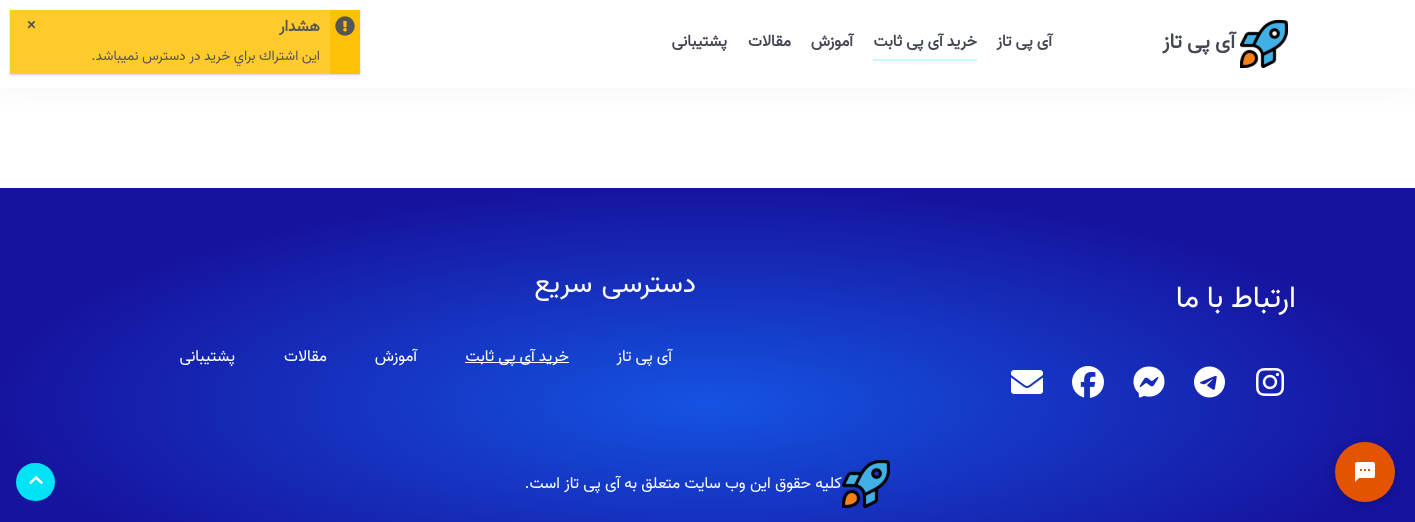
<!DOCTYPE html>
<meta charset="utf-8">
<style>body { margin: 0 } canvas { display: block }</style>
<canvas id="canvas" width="1415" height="522"></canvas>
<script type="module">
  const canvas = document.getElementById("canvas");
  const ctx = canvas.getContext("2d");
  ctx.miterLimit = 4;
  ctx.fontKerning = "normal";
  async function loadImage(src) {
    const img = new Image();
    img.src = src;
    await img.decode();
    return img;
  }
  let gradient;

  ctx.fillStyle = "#ffffff";
  ctx.fillRect(0, 0, 1415, 522);
  gradient = ctx.createRadialGradient(708, 1324.22, 0, 708, 1324.22, 708);
  gradient.addColorStop(0, "#1553e2");
  gradient.addColorStop(1, "#16149f");
  ctx.fillStyle = gradient;
  ctx.beginPath();
  ctx.rect(0, 188, 1415, 334);
  ctx.save();
  ctx.clip();
  ctx.scale(1, 216 / 708);
  ctx.fillRect(0, 0, 1415, 1711);
  ctx.restore();
  ctx.fillStyle = "rgba(0, 0, 0, 0.2)";
  ctx.filter = "blur(5px)";
  ctx.beginPath();
  ctx.roundRect(1335, 444, 60, 60, 30);
  ctx.fill();
  ctx.filter = "none";
  ctx.fillStyle = "#e45300";
  ctx.beginPath();
  ctx.arc(1365, 472, 30, 0, Math.PI * 2);
  ctx.fill();
  ctx.drawImage(await loadImage("img1.png"), 1355, 462, 20, 20);
  ctx.fillStyle = "rgba(0, 0, 0, 0.05)";
  ctx.filter = "blur(15px)";
  ctx.beginPath();
  ctx.rect(0, 0, 1415, 88);
  ctx.fill();
  ctx.filter = "none";
  ctx.fillStyle = "#ffffff";
  ctx.fillRect(0, 0, 1415, 88);
  ctx.drawImage(await loadImage("img2.png"), 1240, 20, 48, 48);
  ctx.direction = "rtl";
  ctx.font = "bold 21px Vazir";
  ctx.fillStyle = "#424753";
  ctx.fillText("آی پی تاز", 1235, 48);
  ctx.font = "bold 16px Vazir";
  ctx.fillText("آی پی تاز", 1052, 46);
  ctx.fillStyle = "#ccf9fd";
  ctx.fillRect(873, 59, 104, 2);
  ctx.fillStyle = "#424753";
  ctx.fillText("خرید آی پی ثابت", 977, 46);
  ctx.fillText("آموزش", 853, 46);
  ctx.fillText("مقالات", 791, 46);
  ctx.fillText("پشتیبانی", 727, 46);
  ctx.font = "30.5px Vazir";
  ctx.fillStyle = "#ffffff";
  ctx.fillText("ارتباط با ما", 1296, 307);
  ctx.drawImage(await loadImage("img3.png"), 1256, 368, 28, 28);
  ctx.drawImage(await loadImage("img4.png"), 1194, 366, 31, 32);
  ctx.drawImage(await loadImage("img5.png"), 1133, 366, 32, 32);
  ctx.drawImage(await loadImage("img6.png"), 1072, 366, 32, 32);
  ctx.drawImage(await loadImage("img7.png"), 1011, 370, 32, 24);
  ctx.wordSpacing = "2px";
  ctx.font = "28px Vazir";
  ctx.fillText("دسترسی سریع", 696, 292);
  ctx.wordSpacing = "0px";
  ctx.font = "16px Vazir";
  ctx.fillText("آی پی تاز", 672, 361);
  ctx.fillRect(465, 362, 104, 1);
  ctx.fillText("خرید آی پی ثابت", 569, 361);
  ctx.fillText("آموزش", 417, 361);
  ctx.fillText("مقالات", 327, 361);
  ctx.fillText("پشتیبانی", 235, 361);
  ctx.drawImage(await loadImage("img8.png"), 842, 460, 48, 48);
  ctx.wordSpacing = "0.25px";
  ctx.fillText("کلیه حقوق این وب سایت متعلق به آی پی تاز است.", 842, 488);
  ctx.fillStyle = "#00e3f7";
  ctx.beginPath();
  ctx.roundRect(16, 463, 39, 38, 19);
  ctx.fill();
  ctx.drawImage(await loadImage("img9.png"), 29, 475, 14, 10);
  ctx.fillStyle = "rgba(0, 0, 0, 0.2)";
  ctx.filter = "blur(1px)";
  ctx.beginPath();
  ctx.rect(10, 11, 350, 64);
  ctx.fill();
  ctx.filter = "none";
  ctx.fillStyle = "#ffc107";
  ctx.fillRect(330, 10, 30, 64);
  ctx.drawImage(await loadImage("img10.png"), 335, 16, 20, 20);
  ctx.fillStyle = "#ffca2c";
  ctx.fillRect(10, 10, 320, 64);
  ctx.wordSpacing = "0px";
  ctx.font = "bold 16px Vazir";
  ctx.fillStyle = "#555555";
  ctx.fillText("هشدار", 320, 31);
  ctx.direction = "ltr";
  ctx.fillText("×", 27, 30);
  ctx.direction = "rtl";
  ctx.font = "14px Vazir";
  ctx.fillText("اين اشتراك براي خريد در دسترس نميباشد.", 320, 60);
</script>
